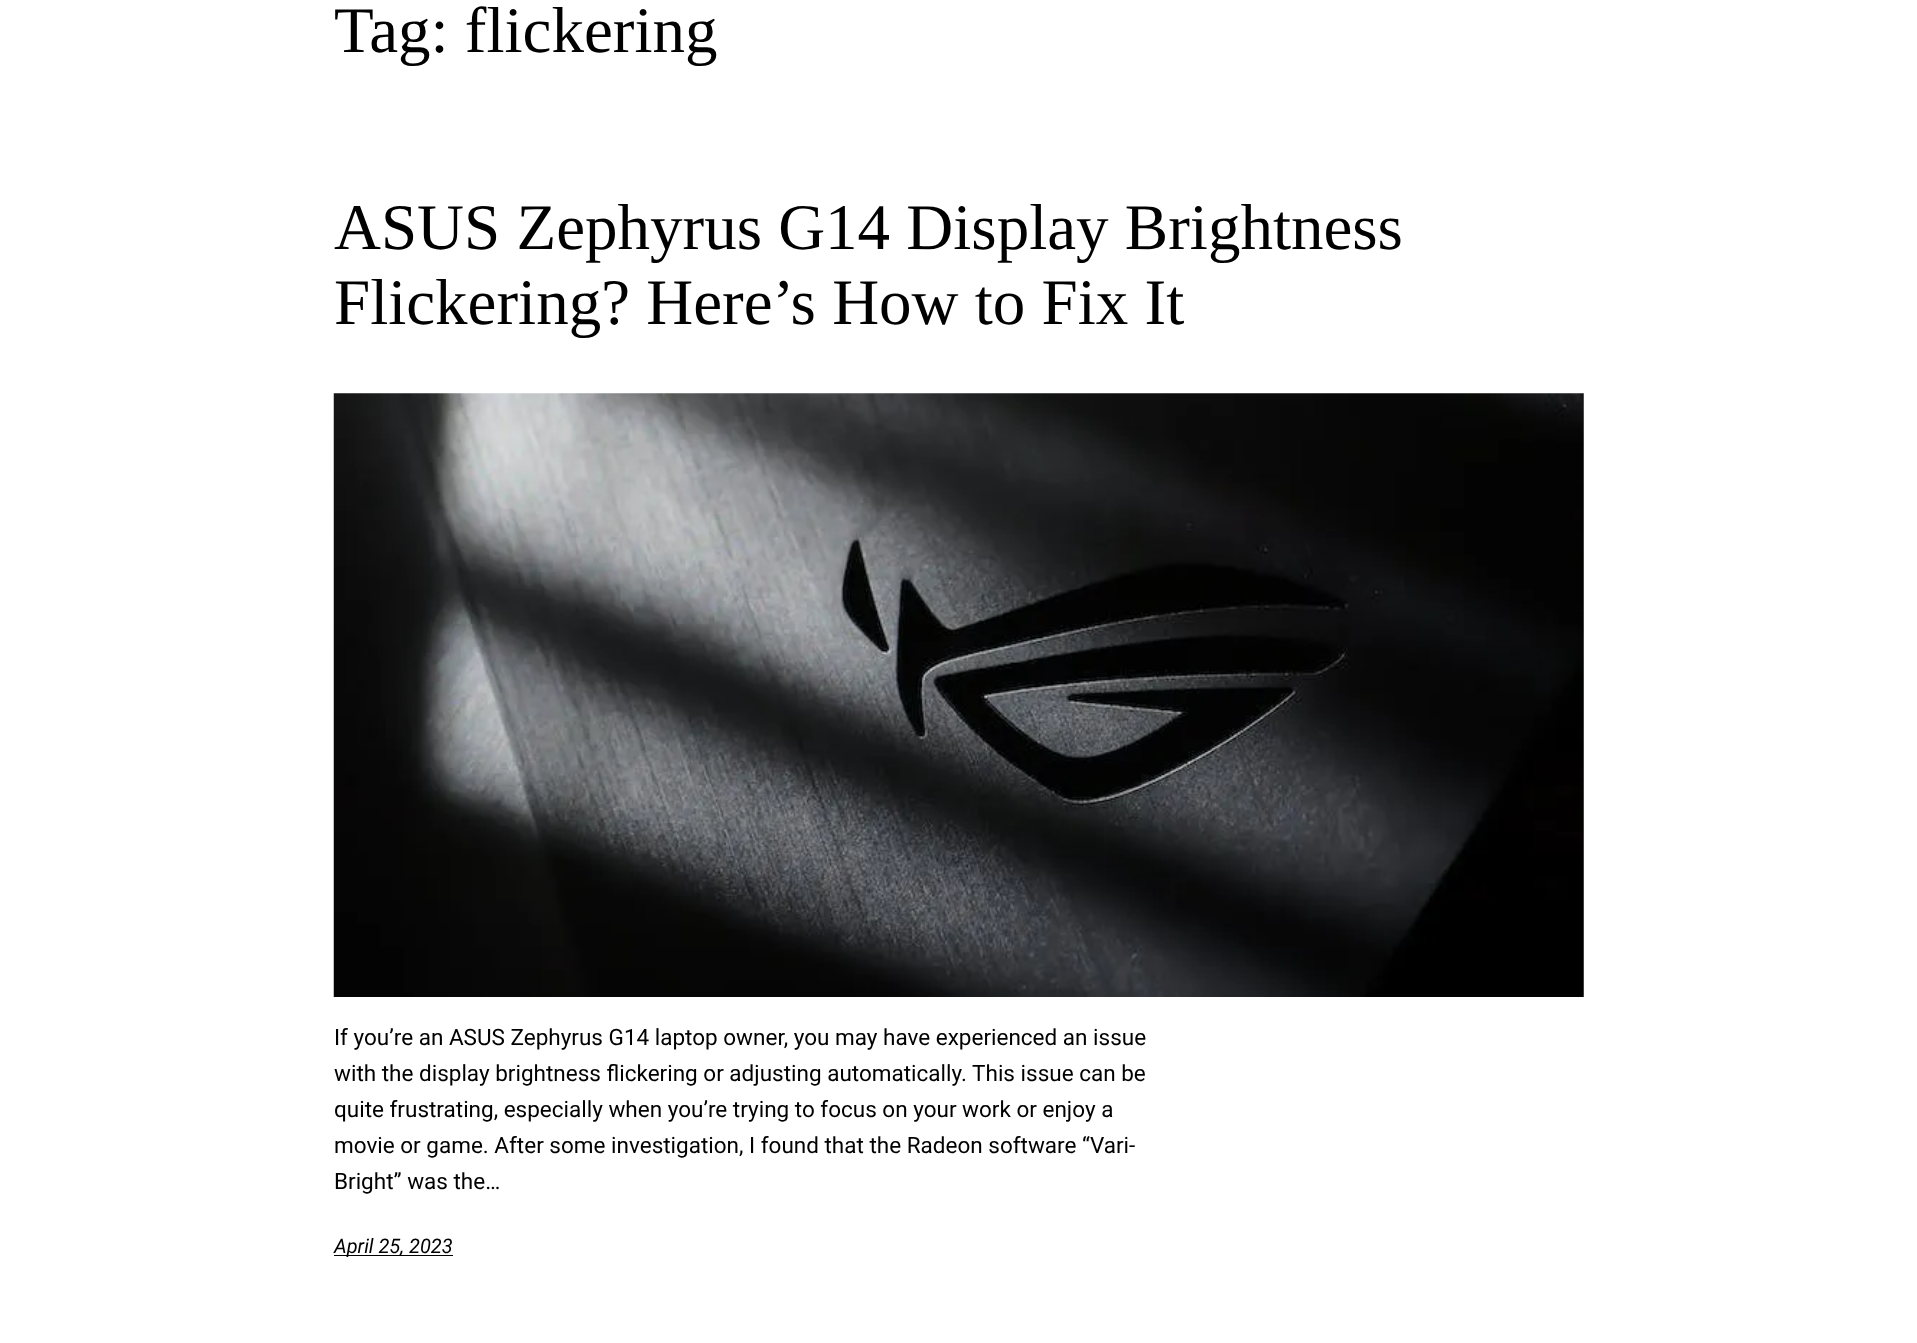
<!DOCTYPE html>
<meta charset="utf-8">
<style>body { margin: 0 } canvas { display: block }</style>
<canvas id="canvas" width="1917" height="1343"></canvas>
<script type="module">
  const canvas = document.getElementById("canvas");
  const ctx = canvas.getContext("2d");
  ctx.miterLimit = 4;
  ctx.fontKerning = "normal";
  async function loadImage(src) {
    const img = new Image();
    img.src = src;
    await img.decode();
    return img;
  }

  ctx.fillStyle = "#ffffff";
  ctx.fillRect(0, 0, 1917, 1343);
  ctx.font = "65px Liberation Serif";
  ctx.fillStyle = "#000000";
  ctx.fillText("Tag: flickering", 334, 52);
  ctx.fillText("ASUS Zephyrus G14 Display Brightness", 334, 249);
  ctx.fillText("Flickering? Here’s How to Fix It", 334, 324);
  ctx.drawImage(await loadImage("img1.png"), 333, 393, 1251, 604);
  ctx.font = "22.5px Roboto";
  ctx.fillText("If you’re an ASUS Zephyrus G14 laptop owner, you may have experienced an issue", 334, 1045);
  ctx.fillText("with the display brightness flickering or adjusting automatically. This issue can be", 334, 1081);
  ctx.fillText("quite frustrating, especially when you’re trying to focus on your work or enjoy a", 334, 1117);
  ctx.fillText("movie or game. After some investigation, I found that the Radeon software “Vari-", 334, 1153);
  ctx.fillText("Bright” was the…", 334, 1189);
  ctx.fillRect(334, 1255, 119, 1);
  ctx.font = "italic 20px Roboto";
  ctx.fillText("April 25, 2023", 334, 1253);
</script>
